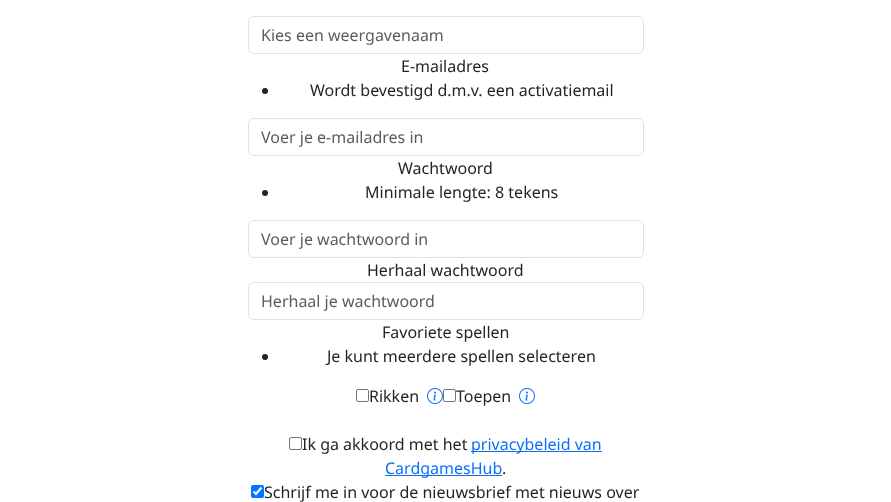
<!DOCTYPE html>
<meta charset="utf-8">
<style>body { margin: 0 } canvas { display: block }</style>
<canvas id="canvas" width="891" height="502"></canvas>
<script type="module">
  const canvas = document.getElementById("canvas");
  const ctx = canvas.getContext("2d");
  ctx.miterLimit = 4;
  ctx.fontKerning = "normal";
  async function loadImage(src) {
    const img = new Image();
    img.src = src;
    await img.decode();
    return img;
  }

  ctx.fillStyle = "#ffffff";
  ctx.fillRect(0, 0, 891, 502);
  ctx.beginPath();
  ctx.roundRect(248.5, 16.5, 395, 37, 5.5);
  ctx.strokeStyle = "#dee2e6";
  ctx.stroke();
  ctx.font = "16px Noto Sans";
  ctx.fillStyle = "#595c5f";
  ctx.fillText("Kies een weergavenaam", 261, 41);
  ctx.fillStyle = "#212529";
  ctx.fillText("E-mailadres", 401, 72);
  ctx.beginPath();
  ctx.arc(265, 91, 3, 0, Math.PI * 2);
  ctx.fill();
  ctx.fillText("Wordt bevestigd d.m.v. een activatiemail", 310, 96);
  ctx.beginPath();
  ctx.roundRect(248.5, 118.5, 395, 37, 5.5);
  ctx.stroke();
  ctx.fillStyle = "#595c5f";
  ctx.fillText("Voer je e-mailadres in", 261, 143);
  ctx.fillStyle = "#212529";
  ctx.fillText("Wachtwoord", 398, 174);
  ctx.beginPath();
  ctx.arc(265, 193, 3, 0, Math.PI * 2);
  ctx.fill();
  ctx.fillText("Minimale lengte: 8 tekens", 365, 198);
  ctx.beginPath();
  ctx.roundRect(248.5, 220.5, 395, 37, 5.5);
  ctx.stroke();
  ctx.fillStyle = "#595c5f";
  ctx.fillText("Voer je wachtwoord in", 261, 245);
  ctx.fillStyle = "#212529";
  ctx.fillText("Herhaal wachtwoord", 367, 276);
  ctx.beginPath();
  ctx.roundRect(248.5, 282.5, 395, 37, 5.5);
  ctx.stroke();
  ctx.fillStyle = "#595c5f";
  ctx.fillText("Herhaal je wachtwoord", 261, 307);
  ctx.fillStyle = "#212529";
  ctx.fillText("Favoriete spellen", 382, 338);
  ctx.beginPath();
  ctx.arc(265, 357, 3, 0, Math.PI * 2);
  ctx.fill();
  ctx.fillText("Je kunt meerdere spellen selecteren", 327, 362);
  ctx.beginPath();
  ctx.roundRect(356.5, 389.5, 12, 12, 1.5);
  ctx.strokeStyle = "#767676";
  ctx.stroke();
  ctx.fillText("Rikken", 369, 402);
  ctx.drawImage(await loadImage("img1.png"), 427, 388, 16, 16);
  ctx.beginPath();
  ctx.roundRect(443.5, 389.5, 12, 12, 1.5);
  ctx.stroke();
  ctx.fillText("Toepen", 456, 402);
  ctx.drawImage(await loadImage("img1.png"), 519, 388, 16, 16);
  ctx.beginPath();
  ctx.roundRect(289.5, 437.5, 12, 12, 1.5);
  ctx.stroke();
  ctx.fillText("Ik ga akkoord met het", 302, 450);
  ctx.fillStyle = "#0d6efd";
  ctx.fillRect(471, 451, 131, 1);
  ctx.fillText("privacybeleid van", 471, 450);
  ctx.fillRect(385, 475, 117, 1);
  ctx.fillText("CardgamesHub", 385, 474);
  ctx.fillStyle = "#212529";
  ctx.fillText(".", 502, 474);
  ctx.fillStyle = "#0075ff";
  ctx.beginPath();
  ctx.roundRect(251, 485, 13, 13, 2);
  ctx.fill();
  ctx.beginPath();
  ctx.moveTo(253.5, 491.5);
  ctx.lineTo(256, 494);
  ctx.lineTo(261.5, 487.5);
  ctx.strokeStyle = "#ffffff";
  ctx.lineWidth = 2.1;
  ctx.stroke();
  ctx.fillStyle = "#212529";
  ctx.fillText("Schrijf me in voor de nieuwsbrief met nieuws over", 264, 498);
</script>
